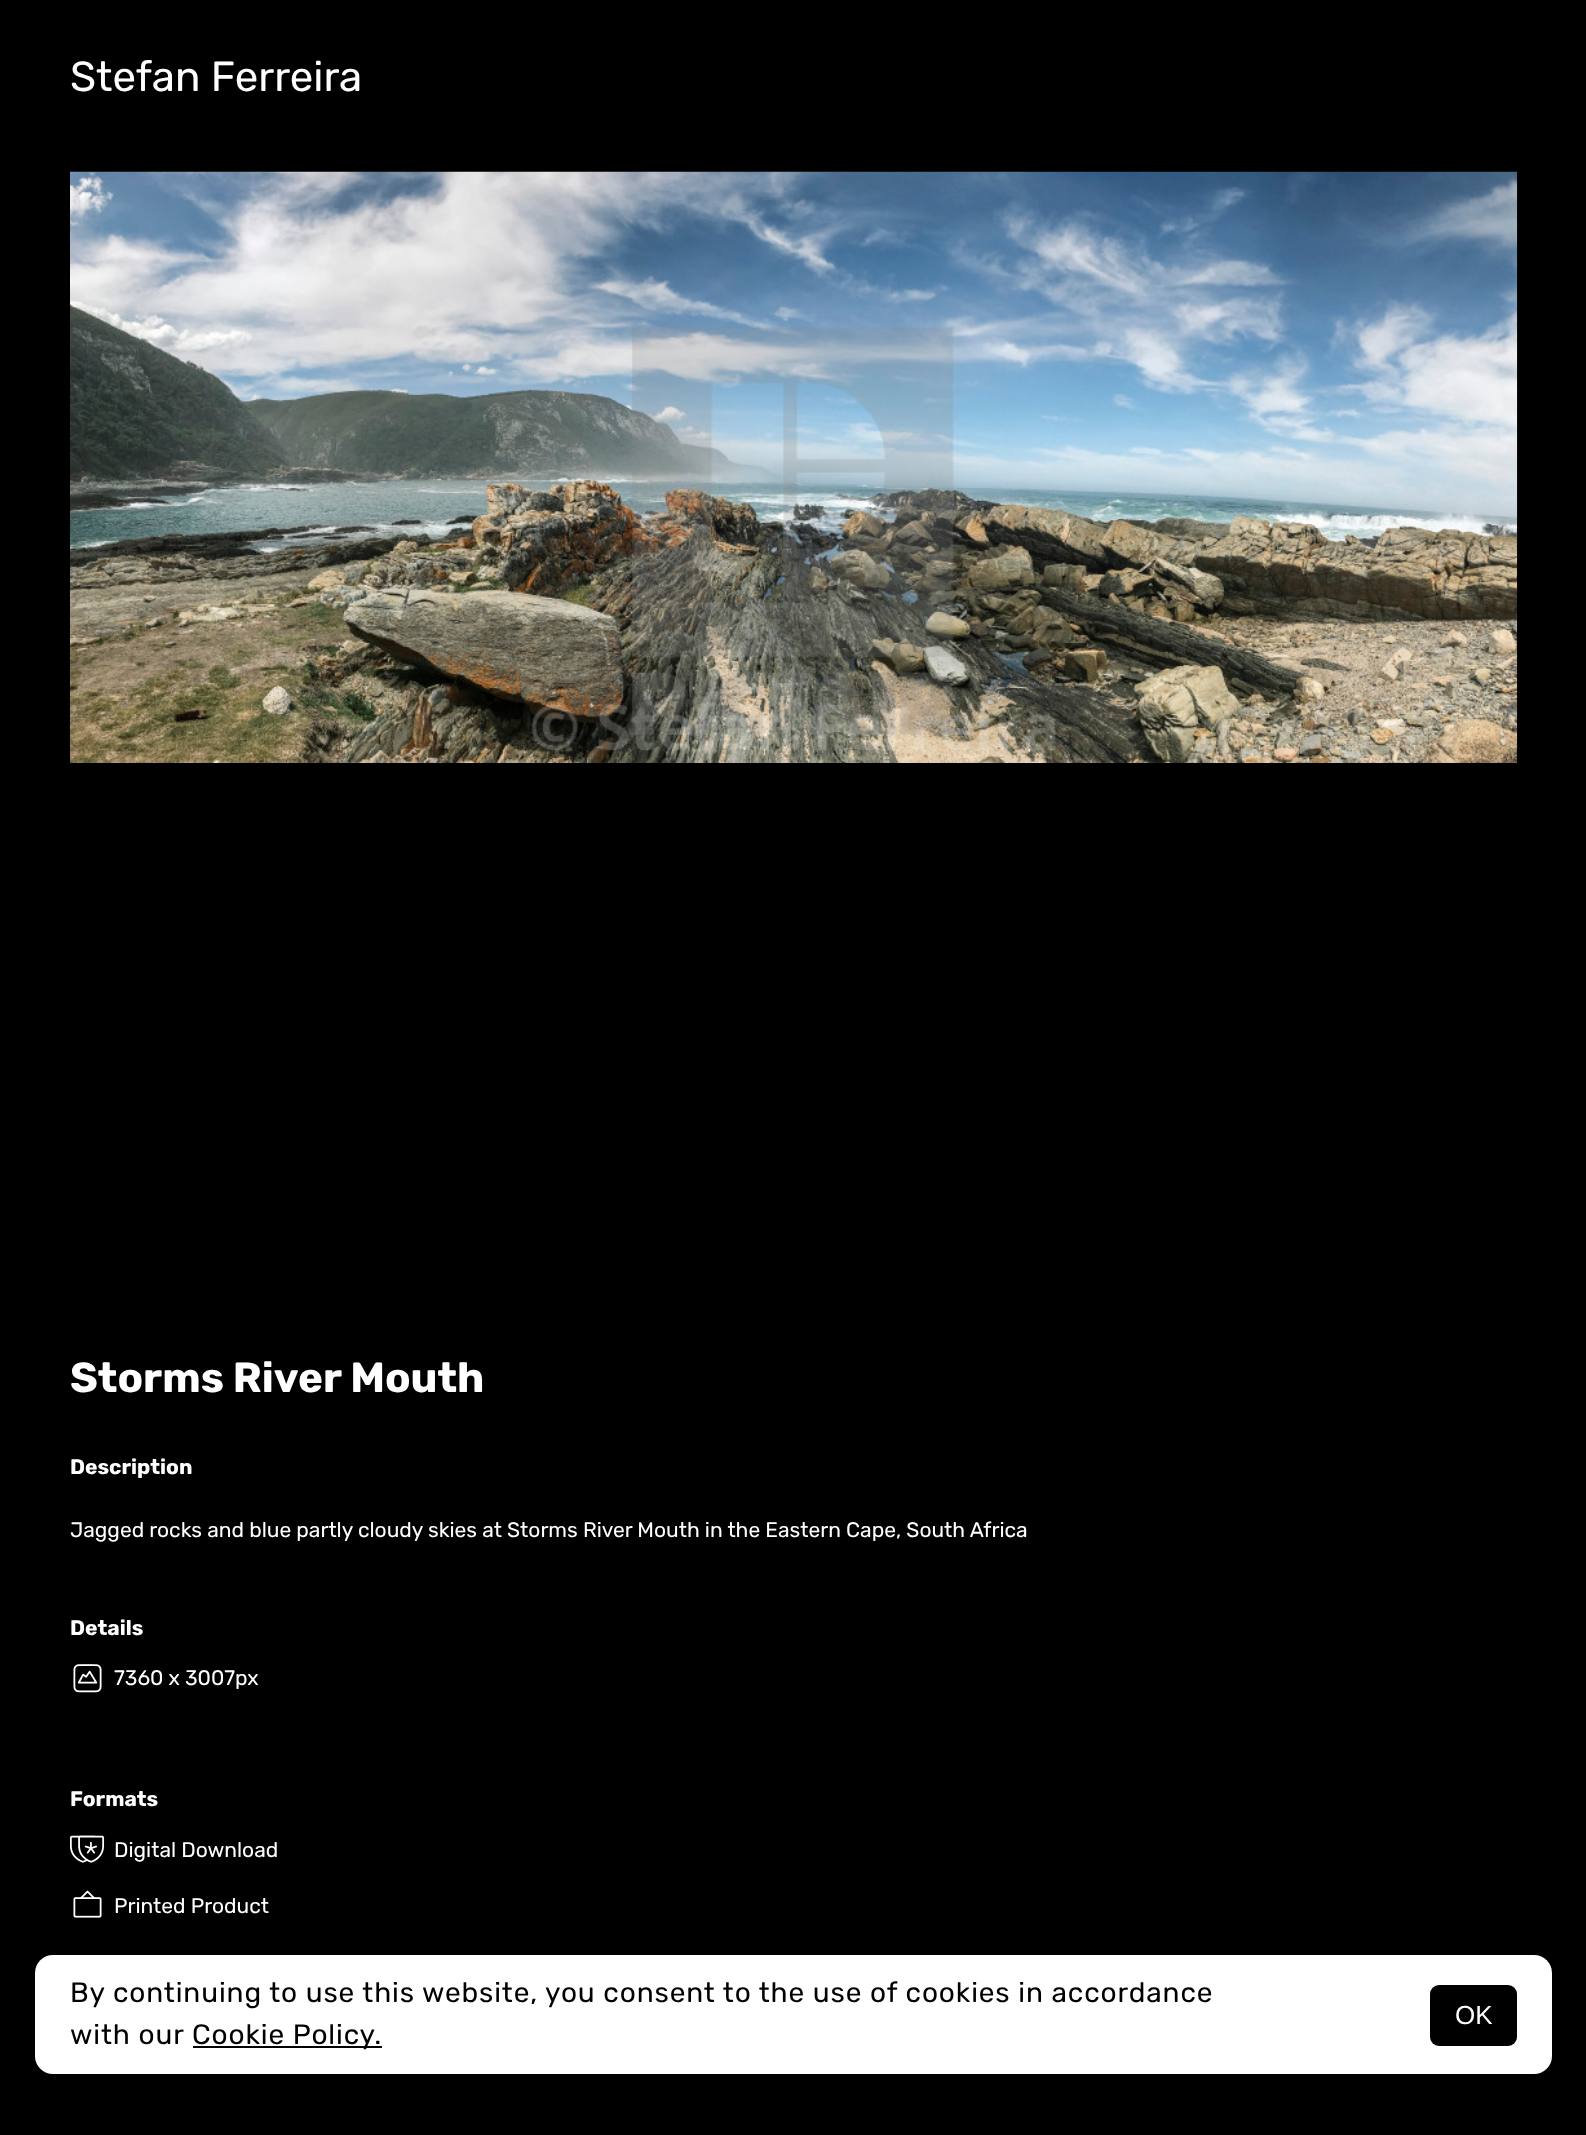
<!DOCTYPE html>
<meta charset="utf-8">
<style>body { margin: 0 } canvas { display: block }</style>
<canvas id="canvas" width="1586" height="2135"></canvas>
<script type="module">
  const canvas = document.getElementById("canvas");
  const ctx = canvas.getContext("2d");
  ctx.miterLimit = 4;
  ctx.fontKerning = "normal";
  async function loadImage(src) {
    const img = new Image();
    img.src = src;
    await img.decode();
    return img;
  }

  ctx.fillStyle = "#000000";
  ctx.fillRect(0, 0, 1586, 2135);
  ctx.font = "42px Rubik";
  ctx.fillStyle = "#ffffff";
  ctx.fillText("Stefan Ferreira", 70, 91);
  ctx.drawImage(await loadImage("img1.png"), 70, 171, 1448, 592);
  ctx.font = "bold 42px Rubik";
  ctx.fillText("Storms River Mouth", 70, 1392);
  ctx.font = "bold 21px Rubik";
  ctx.fillText("Description", 70, 1474);
  ctx.font = "21px Rubik";
  ctx.fillText("Jagged rocks and blue partly cloudy skies at Storms River Mouth in the Eastern Cape, South Africa", 70, 1537);
  ctx.font = "bold 21px Rubik";
  ctx.fillText("Details", 70, 1635);
  ctx.drawImage(await loadImage("img2.png"), 73, 1664, 29, 29);
  ctx.font = "21px Rubik";
  ctx.fillText("7360 x 3007px", 114, 1685);
  ctx.font = "bold 21px Rubik";
  ctx.fillText("Formats", 70, 1806);
  ctx.drawImage(await loadImage("img3.png"), 70, 1835, 35, 28);
  ctx.font = "21px Rubik";
  ctx.fillText("Digital Download", 114, 1857);
  ctx.drawImage(await loadImage("img4.png"), 73, 1890, 29, 28);
  ctx.fillText("Printed Product", 114, 1913);
  ctx.beginPath();
  ctx.roundRect(35, 1955, 1517, 119, 18);
  ctx.fill();
  ctx.letterSpacing = "0.88px";
  ctx.font = "28px Rubik";
  ctx.fillStyle = "#000000";
  ctx.fillText("By continuing to use this website, you consent to the use of cookies in accordance", 70, 2002);
  ctx.fillText("with our", 70, 2044);
  ctx.fillRect(193, 2046, 189, 2);
  ctx.fillText("Cookie Policy.", 192, 2044);
  ctx.beginPath();
  ctx.roundRect(1430, 1985, 87, 61, 9);
  ctx.fill();
  ctx.letterSpacing = "0px";
  ctx.font = "26px Liberation Sans";
  ctx.fillStyle = "#ffffff";
  ctx.fillText("OK", 1455, 2024);
</script>
